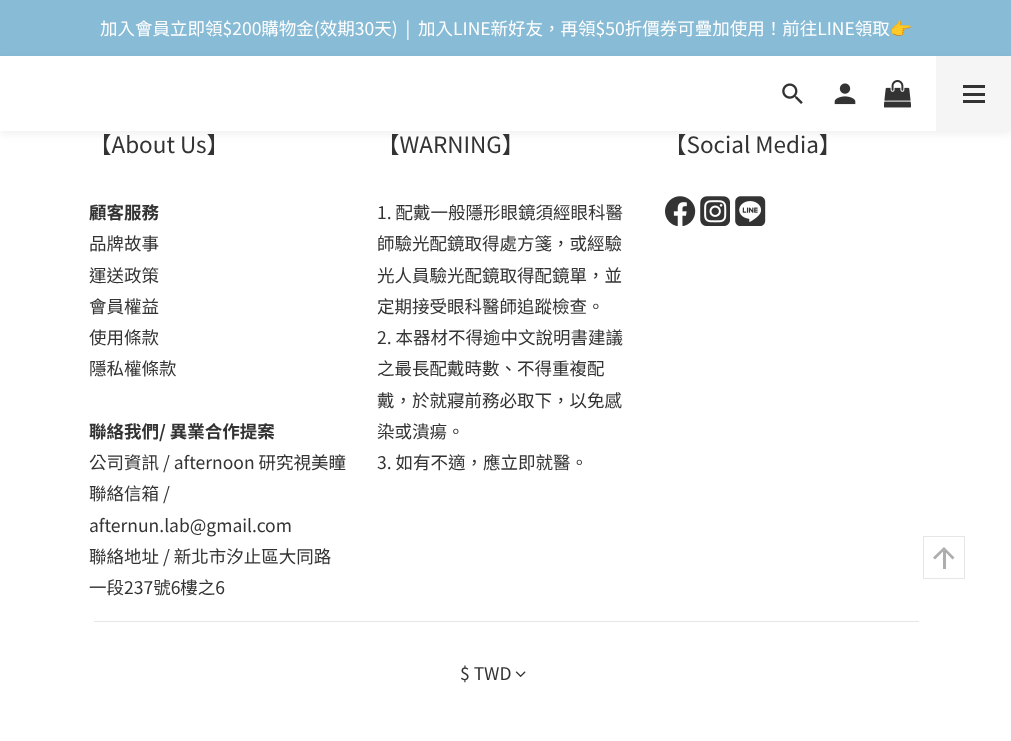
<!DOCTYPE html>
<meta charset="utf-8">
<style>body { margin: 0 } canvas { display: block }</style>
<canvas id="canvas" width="1011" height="741"></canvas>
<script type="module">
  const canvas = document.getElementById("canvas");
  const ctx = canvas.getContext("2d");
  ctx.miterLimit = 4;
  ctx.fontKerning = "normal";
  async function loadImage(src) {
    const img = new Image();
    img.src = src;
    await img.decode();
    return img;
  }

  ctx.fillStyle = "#ffffff";
  ctx.fillRect(0, 0, 1011, 741);
  ctx.fillStyle = "#88bbd5";
  ctx.fillRect(0, 0, 1011, 56);
  ctx.font = "17.5px Noto Sans TC";
  ctx.fillStyle = "#ffffff";
  ctx.fillText("加入會員立即領$200購物金(效期30天)  |  加入LINE新好友，再領$50折價券可疊加使用！前往LINE領取", 100, 35);
  ctx.font = "17.5px Noto Color Emoji";
  ctx.fillText("👉", 890, 35);
  ctx.fillStyle = "rgba(0, 0, 0, 0.06)";
  ctx.filter = "blur(4px)";
  ctx.beginPath();
  ctx.rect(0, 59, 1011, 75);
  ctx.fill();
  ctx.filter = "none";
  ctx.fillStyle = "#ffffff";
  ctx.fillRect(0, 56, 936, 75);
  ctx.drawImage(await loadImage("img1.png"), 782, 83, 21, 21);
  ctx.drawImage(await loadImage("img2.png"), 834, 83, 22, 22);
  ctx.drawImage(await loadImage("img3.png"), 884, 80, 27, 28);
  ctx.fillStyle = "#f5f5f5";
  ctx.fillRect(936, 56, 75, 75);
  ctx.fillStyle = "#333333";
  ctx.fillRect(963, 93, 22, 3);
  ctx.fillRect(963, 85, 22, 3);
  ctx.fillRect(963, 100, 22, 3);
  ctx.font = "22.5px Noto Sans TC";
  ctx.fillText("【About Us】", 89, 153);
  ctx.font = "bold 17.5px Noto Sans TC";
  ctx.fillText("顧客服務", 89, 219);
  ctx.font = "17.5px Noto Sans TC";
  ctx.fillText("品牌故事", 89, 250);
  ctx.fillText("運送政策", 89, 282);
  ctx.fillText("會員權益", 89, 313);
  ctx.fillText("使用條款", 89, 344);
  ctx.fillText("隱私權條款", 89, 375);
  ctx.font = "bold 17.5px Noto Sans TC";
  ctx.fillText("聯絡我們/ 異業合作提案", 89, 438);
  ctx.font = "17.5px Noto Sans TC";
  ctx.fillText("公司資訊 / afternoon 研究視美瞳", 89, 469);
  ctx.fillText("聯絡信箱 /", 89, 500);
  ctx.fillText("afternun.lab@gmail.com", 89, 532);
  ctx.fillText("聯絡地址 / 新北市汐止區大同路", 89, 563);
  ctx.fillText("一段237號6樓之6", 89, 594);
  ctx.font = "22.5px Noto Sans TC";
  ctx.fillText("【WARNING】", 377, 153);
  ctx.font = "17.5px Noto Sans TC";
  ctx.fillText("1. 配戴一般隱形眼鏡須經眼科醫", 377, 219);
  ctx.fillText("師驗光配鏡取得處方箋，或經驗", 377, 250);
  ctx.fillText("光人員驗光配鏡取得配鏡單，並", 377, 282);
  ctx.fillText("定期接受眼科醫師追蹤檢查。", 377, 313);
  ctx.fillText("2. 本器材不得逾中文說明書建議", 377, 344);
  ctx.fillText("之最長配戴時數、不得重複配", 377, 375);
  ctx.fillText("戴，於就寢前務必取下，以免感", 377, 407);
  ctx.fillText("染或潰瘍。", 377, 438);
  ctx.fillText("3. 如有不適，應立即就醫。", 377, 469);
  ctx.font = "22.5px Noto Sans TC";
  ctx.fillText("【Social Media】", 664, 153);
  ctx.drawImage(await loadImage("img4.png"), 665, 196, 31, 30);
  ctx.drawImage(await loadImage("img5.png"), 700, 196, 30, 30);
  ctx.drawImage(await loadImage("img6.png"), 735, 196, 31, 30);
  ctx.fillStyle = "#e6e6e6";
  ctx.fillRect(94, 621, 825, 1);
  ctx.font = "17.5px Noto Sans TC";
  ctx.fillStyle = "#333333";
  ctx.fillText("$ TWD", 460, 680);
  ctx.drawImage(await loadImage("img7.png"), 515, 671, 11, 6);
  ctx.strokeStyle = "#e6e6e6";
  ctx.strokeRect(923.5, 536.5, 41, 42);
  ctx.fillStyle = "#adadad";
  ctx.beginPath();
  ctx.moveTo(944, 547);
  ctx.lineTo(954.5, 557.5);
  ctx.lineTo(952.5, 559.5);
  ctx.lineTo(944, 550.5);
  ctx.closePath();
  ctx.moveTo(933, 557.5);
  ctx.lineTo(944, 547);
  ctx.lineTo(944, 550.5);
  ctx.lineTo(935, 559.5);
  ctx.closePath();
  ctx.fill();
  ctx.fillStyle = "rgba(153, 153, 153, 0.8)";
  ctx.fillRect(943, 551, 3, 18);
</script>
